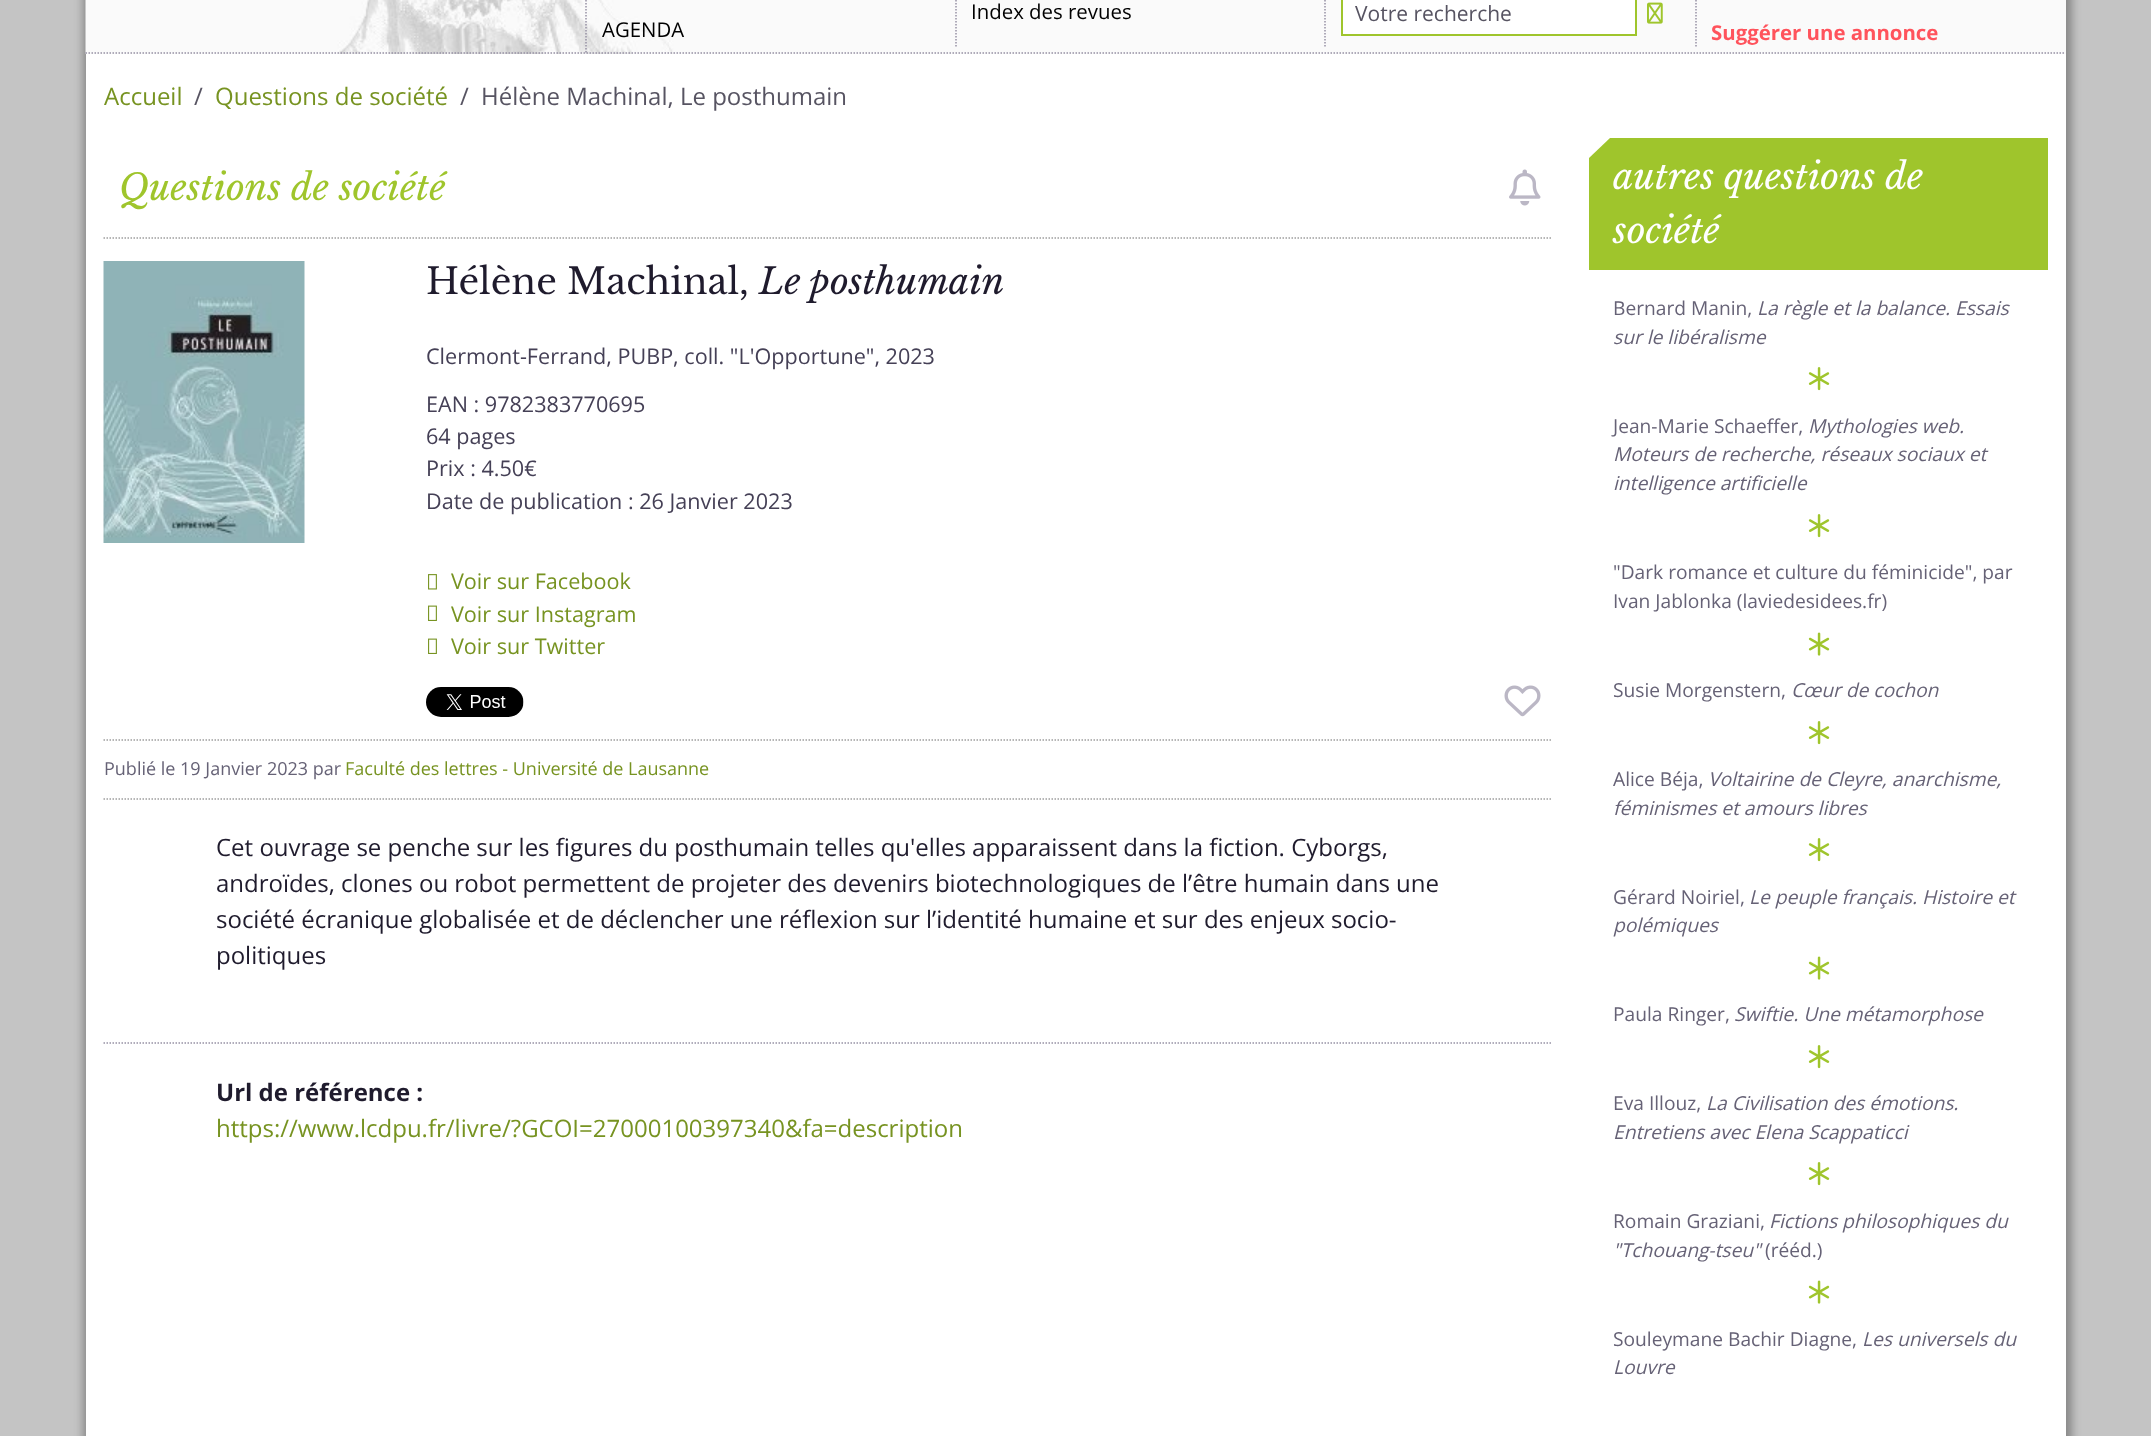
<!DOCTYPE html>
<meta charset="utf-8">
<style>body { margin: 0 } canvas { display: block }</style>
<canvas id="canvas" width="2151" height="1436"></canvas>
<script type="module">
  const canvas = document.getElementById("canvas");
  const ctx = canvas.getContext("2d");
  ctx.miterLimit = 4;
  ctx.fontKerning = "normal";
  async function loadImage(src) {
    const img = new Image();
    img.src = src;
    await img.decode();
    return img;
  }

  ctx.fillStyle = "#c4c4c4";
  ctx.fillRect(0, 0, 2151, 1436);
  ctx.fillStyle = "#888888";
  ctx.filter = "blur(4px)";
  ctx.beginPath();
  ctx.rect(83, -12, 1989, 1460);
  ctx.fill();
  ctx.filter = "none";
  ctx.fillStyle = "#ffffff";
  ctx.fillRect(86, 54, 1980, 1382);
  ctx.fillStyle = "#fafafa";
  ctx.fillRect(674, 0, 1392, 54);
  ctx.drawImage(await loadImage("img1.png"), 85, 0, 589, 54);
  ctx.beginPath();
  ctx.moveTo(85.5, 53);
  ctx.lineTo(2065.5, 53);
  ctx.strokeStyle = "#9691a4";
  ctx.lineWidth = 1.5;
  ctx.setLineDash([1.5, 1.5]);
  ctx.stroke();
  ctx.beginPath();
  ctx.moveTo(586, -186);
  ctx.lineTo(586, 52.5);
  ctx.stroke();
  ctx.beginPath();
  ctx.moveTo(1325, -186);
  ctx.lineTo(1325, 48);
  ctx.stroke();
  ctx.font = "20.4px Open Sans";
  ctx.fillStyle = "#000000";
  ctx.fillText("Index des revues", 971, 19);
  ctx.beginPath();
  ctx.moveTo(1696, -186);
  ctx.lineTo(1696, 48);
  ctx.stroke();
  ctx.fillStyle = "#ffffff";
  ctx.beginPath();
  ctx.rect(1342, -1, 294, 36);
  ctx.fill();
  ctx.strokeStyle = "#9fc52c";
  ctx.lineWidth = 2;
  ctx.setLineDash([]);
  ctx.stroke();
  ctx.font = "21px Open Sans";
  ctx.fillStyle = "#575462";
  ctx.fillText("Votre recherche", 1355, 21);
  ctx.drawImage(await loadImage("img2.png"), 1647, 2, 16, 22);
  ctx.beginPath();
  ctx.moveTo(956, -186);
  ctx.lineTo(956, 48);
  ctx.strokeStyle = "#9691a4";
  ctx.lineWidth = 1.5;
  ctx.setLineDash([1.5, 1.5]);
  ctx.stroke();
  ctx.font = "20.4px Open Sans";
  ctx.fillStyle = "#000000";
  ctx.fillText("AGENDA", 602, 37);
  ctx.font = "bold 20.4px Open Sans";
  ctx.fillStyle = "#ff535c";
  ctx.fillText("Suggérer une annonce", 1711, 40);
  ctx.font = "24px Open Sans";
  ctx.fillStyle = "#779321";
  ctx.fillText("Accueil", 104, 105);
  ctx.fillStyle = "#575462";
  ctx.fillText("/", 194, 105);
  ctx.fillStyle = "#779321";
  ctx.fillText("Questions de société", 215, 105);
  ctx.fillStyle = "#575462";
  ctx.fillText("/", 460, 105);
  ctx.fillText("Hélène Machinal, Le posthumain", 481, 105);
  ctx.font = "italic 36px Libre Baskerville";
  ctx.fillStyle = "#9fc52c";
  ctx.fillText("Questions de société", 119, 200);
  ctx.drawImage(await loadImage("img3.png"), 1509, 169, 32, 37);
  ctx.beginPath();
  ctx.moveTo(103.5, 238);
  ctx.lineTo(1552.5, 238);
  ctx.strokeStyle = "#9e9e9e";
  ctx.stroke();
  ctx.beginPath();
  ctx.moveTo(103.5, 799);
  ctx.lineTo(1552.5, 799);
  ctx.stroke();
  ctx.drawImage(await loadImage("img4.png"), 103, 261, 202, 282);
  ctx.font = "36px Libre Baskerville";
  ctx.fillStyle = "#1f1b2d";
  ctx.fillText("Hélène Machinal,", 426, 294);
  ctx.font = "italic 36px Libre Baskerville";
  ctx.fillText("Le posthumain", 759, 294);
  ctx.font = "21.6px Open Sans";
  ctx.fillStyle = "#454056";
  ctx.fillText("Clermont-Ferrand, PUBP, coll. \"L'Opportune\", 2023", 426, 364);
  ctx.fillText("EAN : 9782383770695", 426, 412);
  ctx.fillText("64 pages", 426, 444);
  ctx.fillText("Prix : 4.50€", 426, 476);
  ctx.fillText("Date de publication : 26 Janvier 2023", 426, 509);
  ctx.drawImage(await loadImage("img5.png"), 428, 574, 9, 16);
  ctx.fillStyle = "#779321";
  ctx.fillText("Voir sur Facebook", 451, 589);
  ctx.drawImage(await loadImage("img6.png"), 428, 605, 9, 16);
  ctx.fillText("Voir sur Instagram", 451, 622);
  ctx.drawImage(await loadImage("img6.png"), 428, 638, 9, 16);
  ctx.fillText("Voir sur Twitter", 451, 654);
  ctx.drawImage(await loadImage("img7.png"), 426, 687, 98, 30);
  ctx.drawImage(await loadImage("img8.png"), 1504, 685, 37, 32);
  ctx.beginPath();
  ctx.moveTo(103.5, 740);
  ctx.lineTo(1552.5, 740);
  ctx.stroke();
  ctx.font = "18px Open Sans";
  ctx.fillStyle = "#666276";
  ctx.fillText("Publié le 19 Janvier 2023 par", 104, 775);
  ctx.fillStyle = "#779321";
  ctx.fillText("Faculté des lettres - Université de Lausanne", 345, 775);
  ctx.font = "24px Open Sans";
  ctx.fillStyle = "#1f1b2d";
  ctx.fillText("Cet ouvrage se penche sur les figures du posthumain telles qu'elles apparaissent dans la fiction. Cyborgs,", 216, 856);
  ctx.fillText("androïdes, clones ou robot permettent de projeter des devenirs biotechnologiques de l’être humain dans une", 216, 892);
  ctx.fillText("société écranique globalisée et de déclencher une réflexion sur l’identité humaine et sur des enjeux socio-", 216, 928);
  ctx.fillText("politiques", 216, 964);
  ctx.beginPath();
  ctx.moveTo(103.5, 1043);
  ctx.lineTo(1552.5, 1043);
  ctx.strokeStyle = "#9691a4";
  ctx.stroke();
  ctx.font = "bold 24px Open Sans";
  ctx.fillText("Url de référence :", 216, 1101);
  ctx.font = "24px Open Sans";
  ctx.fillStyle = "#779321";
  ctx.fillText("https://www.lcdpu.fr/livre/?GCOI=27000100397340&fa=description", 216, 1137);
  ctx.fillStyle = "#9fc52c";
  ctx.fillRect(1589, 138, 459, 132);
  ctx.save();
  ctx.beginPath();
  ctx.rect(1589, 138, 459, 132);
  ctx.clip();
  ctx.fillStyle = "#ffffff";
  ctx.beginPath();
  ctx.moveTo(1588, 117);
  ctx.lineTo(1610, 138);
  ctx.lineTo(1588, 159);
  ctx.lineTo(1567, 138);
  ctx.closePath();
  ctx.fill();
  ctx.restore();
  ctx.font = "italic 36px Libre Baskerville";
  ctx.fillStyle = "#ffffff";
  ctx.fillText("autres questions de", 1613, 189);
  ctx.fillText("société", 1613, 243);
  ctx.font = "19.2px Open Sans";
  ctx.fillStyle = "#666276";
  ctx.fillText("Bernard Manin,", 1613, 315);
  ctx.font = "italic 19.2px Open Sans";
  ctx.fillText("La règle et la balance. Essais", 1757, 315);
  ctx.fillText("sur le libéralisme", 1613, 344);
  ctx.drawImage(await loadImage("img9.png"), 1808, 367, 22, 24);
  ctx.font = "19.2px Open Sans";
  ctx.fillText("Jean-Marie Schaeffer,", 1613, 433);
  ctx.font = "italic 19.2px Open Sans";
  ctx.fillText("Mythologies web.", 1808, 433);
  ctx.fillText("Moteurs de recherche, réseaux sociaux et", 1613, 461);
  ctx.fillText("intelligence artificielle", 1613, 490);
  ctx.drawImage(await loadImage("img9.png"), 1808, 514, 22, 24);
  ctx.font = "19.2px Open Sans";
  ctx.fillText("\"Dark romance et culture du féminicide\", par", 1613, 579);
  ctx.fillText("Ivan Jablonka (laviedesidees.fr)", 1613, 608);
  ctx.drawImage(await loadImage("img10.png"), 1808, 632, 22, 24);
  ctx.fillText("Susie Morgenstern,", 1613, 697);
  ctx.font = "italic 19.2px Open Sans";
  ctx.fillText("Cœur de cochon", 1791, 697);
  ctx.drawImage(await loadImage("img9.png"), 1808, 721, 22, 24);
  ctx.font = "19.2px Open Sans";
  ctx.fillText("Alice Béja,", 1613, 786);
  ctx.font = "italic 19.2px Open Sans";
  ctx.fillText("Voltairine de Cleyre, anarchisme,", 1708, 786);
  ctx.fillText("féminismes et amours libres", 1613, 815);
  ctx.drawImage(await loadImage("img9.png"), 1808, 838, 22, 24);
  ctx.font = "19.2px Open Sans";
  ctx.fillText("Gérard Noiriel,", 1613, 904);
  ctx.font = "italic 19.2px Open Sans";
  ctx.fillText("Le peuple français. Histoire et", 1749, 904);
  ctx.fillText("polémiques", 1613, 932);
  ctx.drawImage(await loadImage("img10.png"), 1808, 956, 22, 24);
  ctx.font = "19.2px Open Sans";
  ctx.fillText("Paula Ringer,", 1613, 1021);
  ctx.font = "italic 19.2px Open Sans";
  ctx.fillText("Swiftie. Une métamorphose", 1734, 1021);
  ctx.drawImage(await loadImage("img9.png"), 1808, 1045, 22, 24);
  ctx.font = "19.2px Open Sans";
  ctx.fillText("Eva Illouz,", 1613, 1110);
  ctx.font = "italic 19.2px Open Sans";
  ctx.fillText("La Civilisation des émotions.", 1706, 1110);
  ctx.fillText("Entretiens avec Elena Scappaticci", 1613, 1139);
  ctx.drawImage(await loadImage("img9.png"), 1808, 1162, 22, 24);
  ctx.font = "19.2px Open Sans";
  ctx.fillText("Romain Graziani,", 1613, 1228);
  ctx.font = "italic 19.2px Open Sans";
  ctx.fillText("Fictions philosophiques du", 1769, 1228);
  ctx.fillText("\"Tchouang-tseu\"", 1613, 1257);
  ctx.font = "19.2px Open Sans";
  ctx.fillText("(rééd.)", 1765, 1257);
  ctx.drawImage(await loadImage("img10.png"), 1808, 1280, 22, 24);
  ctx.fillText("Souleymane Bachir Diagne,", 1613, 1346);
  ctx.font = "italic 19.2px Open Sans";
  ctx.fillText("Les universels du", 1862, 1346);
  ctx.fillText("Louvre", 1613, 1374);
</script>
